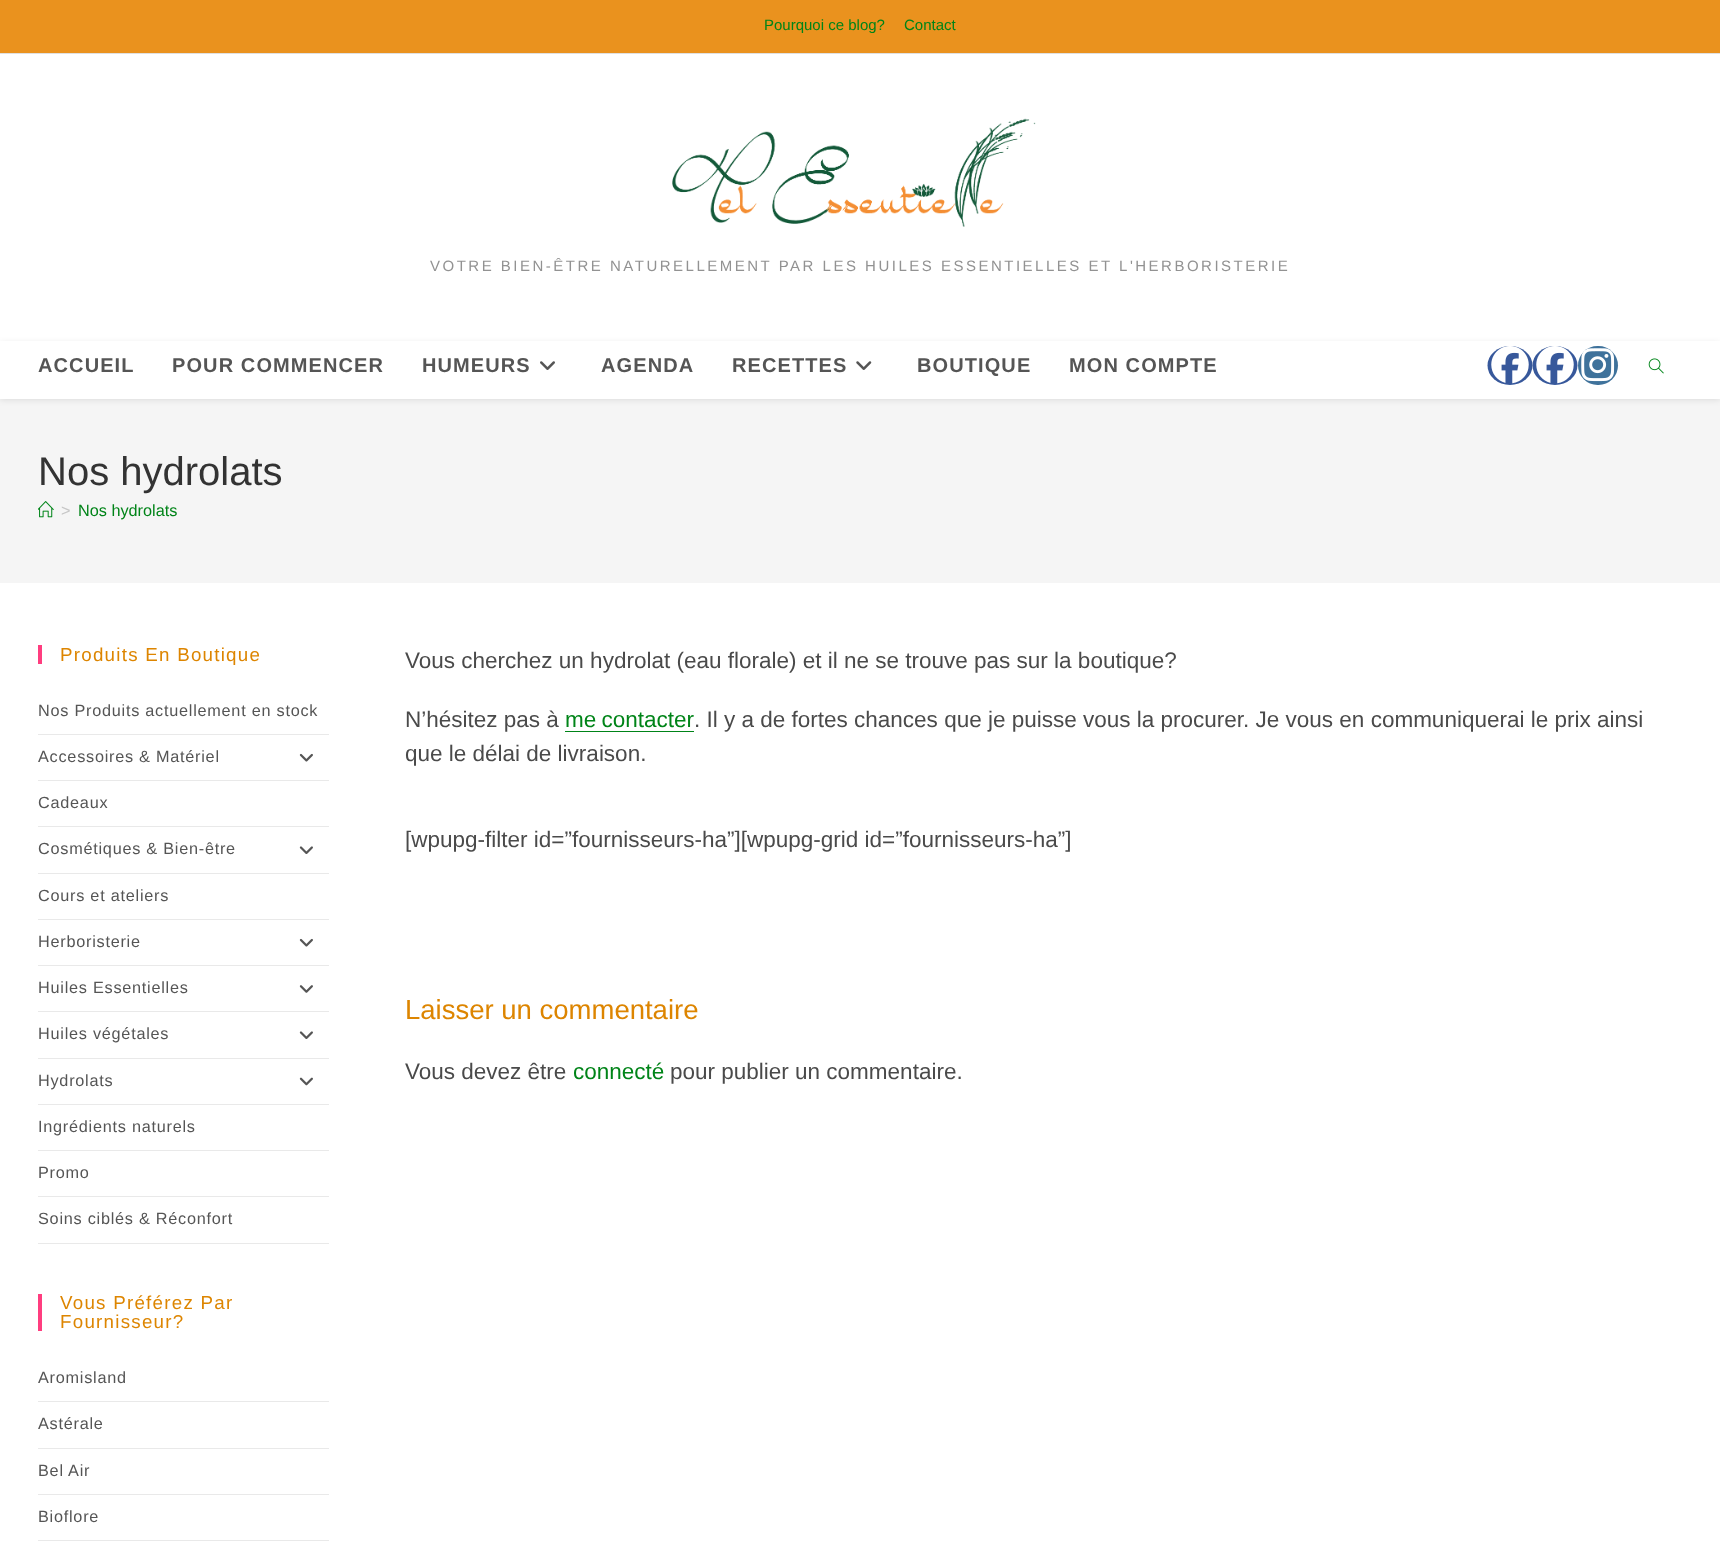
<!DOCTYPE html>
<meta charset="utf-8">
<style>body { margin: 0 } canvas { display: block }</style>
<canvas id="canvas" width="1720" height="1548"></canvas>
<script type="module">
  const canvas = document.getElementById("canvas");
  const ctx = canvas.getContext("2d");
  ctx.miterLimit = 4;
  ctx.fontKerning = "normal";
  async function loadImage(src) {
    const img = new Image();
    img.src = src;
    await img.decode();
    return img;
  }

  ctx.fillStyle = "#ffffff";
  ctx.fillRect(0, 0, 1720, 1548);
  ctx.fillStyle = "#ea921e";
  ctx.fillRect(0, 0, 1720, 53);
  ctx.fillStyle = "#e0e0e0";
  ctx.fillRect(0, 53, 1720, 1);
  ctx.font = "15px Liberation Sans";
  ctx.fillStyle = "#008418";
  ctx.fillText("Pourquoi ce blog?", 764, 30);
  ctx.fillText("Contact", 904, 30);
  ctx.drawImage(await loadImage("img1.png"), 672, 118, 364, 109);
  ctx.letterSpacing = "2.5px";
  ctx.fillStyle = "#929292";
  ctx.fillText("VOTRE BIEN-ÊTRE NATURELLEMENT PAR LES HUILES ESSENTIELLES ET L'HERBORISTERIE", 430, 271);
  ctx.fillStyle = "#f5f5f5";
  ctx.fillRect(0, 399, 1720, 184);
  ctx.fillStyle = "rgba(0, 0, 0, 0.1)";
  ctx.filter = "blur(3px)";
  ctx.beginPath();
  ctx.rect(0, 343, 1720, 57);
  ctx.fill();
  ctx.filter = "none";
  ctx.fillStyle = "#ffffff";
  ctx.fillRect(0, 341, 1720, 58);
  ctx.letterSpacing = "1.1px";
  ctx.font = "bold 20px Liberation Sans";
  ctx.fillStyle = "#555555";
  ctx.fillText("ACCUEIL", 38, 372);
  ctx.fillText("POUR COMMENCER", 172, 372);
  ctx.fillText("HUMEURS", 422, 372);
  ctx.drawImage(await loadImage("img2.png"), 540, 361, 15, 9);
  ctx.fillText("AGENDA", 601, 372);
  ctx.fillText("RECETTES", 732, 372);
  ctx.drawImage(await loadImage("img3.png"), 856, 361, 16, 9);
  ctx.fillText("BOUTIQUE", 917, 372);
  ctx.fillText("MON COMPTE", 1069, 372);
  ctx.fillStyle = "#37589b";
  ctx.beginPath();
  ctx.ellipse(1510, 365.5, 22.5, 19.5, 0, 0, Math.PI * 2);
  ctx.fill();
  ctx.drawImage(await loadImage("img4.png"), 1491, 346, 38, 38);
  ctx.beginPath();
  ctx.ellipse(1555, 365.5, 22.5, 19.5, 0, 0, Math.PI * 2);
  ctx.fill();
  ctx.drawImage(await loadImage("img4.png"), 1536, 346, 38, 38);
  ctx.fillStyle = "#3f729b";
  ctx.beginPath();
  ctx.roundRect(1578, 346, 40, 39, 19.5);
  ctx.fill();
  ctx.drawImage(await loadImage("img5.png"), 1581, 348, 34, 34);
  ctx.drawImage(await loadImage("img6.png"), 1648, 358, 16, 16);
  ctx.letterSpacing = "0px";
  ctx.font = "40px Liberation Sans";
  ctx.fillStyle = "#333333";
  ctx.fillText("Nos hydrolats", 38, 485);
  ctx.drawImage(await loadImage("img7.png"), 38, 501, 16, 17);
  ctx.font = "16.25px Liberation Sans";
  ctx.fillStyle = "#c6c6c6";
  ctx.fillText(">", 61, 516);
  ctx.fillStyle = "#008418";
  ctx.fillText("Nos hydrolats", 78, 516);
  ctx.fillStyle = "#ff3d7f";
  ctx.fillRect(38, 645, 4, 19);
  ctx.letterSpacing = "1.25px";
  ctx.font = "18.75px Liberation Sans";
  ctx.fillStyle = "#dd8500";
  ctx.fillText("Produits En Boutique", 60, 661);
  ctx.fillStyle = "#e9e9e9";
  ctx.fillRect(38, 734, 291, 1);
  ctx.letterSpacing = "0.75px";
  ctx.font = "16.25px Liberation Sans";
  ctx.fillStyle = "#555555";
  ctx.fillText("Nos Produits actuellement en stock", 38, 716);
  ctx.fillStyle = "#e9e9e9";
  ctx.fillRect(38, 780, 291, 1);
  ctx.fillStyle = "#555555";
  ctx.fillText("Accessoires & Matériel", 38, 762);
  ctx.drawImage(await loadImage("img8.png"), 299, 753, 14, 9);
  ctx.fillStyle = "#e9e9e9";
  ctx.fillRect(38, 826, 291, 1);
  ctx.fillStyle = "#555555";
  ctx.fillText("Cadeaux", 38, 808);
  ctx.fillStyle = "#e9e9e9";
  ctx.fillRect(38, 873, 291, 1);
  ctx.fillStyle = "#555555";
  ctx.fillText("Cosmétiques & Bien-être", 38, 854);
  ctx.drawImage(await loadImage("img9.png"), 299, 846, 14, 8);
  ctx.fillStyle = "#e9e9e9";
  ctx.fillRect(38, 919, 291, 1);
  ctx.fillStyle = "#555555";
  ctx.fillText("Cours et ateliers", 38, 901);
  ctx.fillStyle = "#e9e9e9";
  ctx.fillRect(38, 965, 291, 1);
  ctx.fillStyle = "#555555";
  ctx.fillText("Herboristerie", 38, 947);
  ctx.drawImage(await loadImage("img8.png"), 299, 938, 14, 9);
  ctx.fillStyle = "#e9e9e9";
  ctx.fillRect(38, 1011, 291, 1);
  ctx.fillStyle = "#555555";
  ctx.fillText("Huiles Essentielles", 38, 993);
  ctx.drawImage(await loadImage("img10.png"), 299, 985, 14, 8);
  ctx.fillStyle = "#e9e9e9";
  ctx.fillRect(38, 1058, 291, 1);
  ctx.fillStyle = "#555555";
  ctx.fillText("Huiles végétales", 38, 1039);
  ctx.drawImage(await loadImage("img9.png"), 299, 1031, 14, 8);
  ctx.fillStyle = "#e9e9e9";
  ctx.fillRect(38, 1104, 291, 1);
  ctx.fillStyle = "#555555";
  ctx.fillText("Hydrolats", 38, 1086);
  ctx.drawImage(await loadImage("img11.png"), 299, 1077, 14, 9);
  ctx.fillStyle = "#e9e9e9";
  ctx.fillRect(38, 1150, 291, 1);
  ctx.fillStyle = "#555555";
  ctx.fillText("Ingrédients naturels", 38, 1132);
  ctx.fillStyle = "#e9e9e9";
  ctx.fillRect(38, 1196, 291, 1);
  ctx.fillStyle = "#555555";
  ctx.fillText("Promo", 38, 1178);
  ctx.fillStyle = "#e9e9e9";
  ctx.fillRect(38, 1243, 291, 1);
  ctx.fillStyle = "#555555";
  ctx.fillText("Soins ciblés & Réconfort", 38, 1224);
  ctx.fillStyle = "#ff3d7f";
  ctx.fillRect(38, 1294, 4, 37);
  ctx.letterSpacing = "1.25px";
  ctx.font = "18.75px Liberation Sans";
  ctx.fillStyle = "#dd8500";
  ctx.fillText("Vous Préférez Par", 60, 1309);
  ctx.fillText("Fournisseur?", 60, 1328);
  ctx.fillStyle = "#e9e9e9";
  ctx.fillRect(38, 1401, 291, 1);
  ctx.letterSpacing = "0.75px";
  ctx.font = "16.25px Liberation Sans";
  ctx.fillStyle = "#555555";
  ctx.fillText("Aromisland", 38, 1383);
  ctx.fillStyle = "#e9e9e9";
  ctx.fillRect(38, 1448, 291, 1);
  ctx.fillStyle = "#555555";
  ctx.fillText("Astérale", 38, 1429);
  ctx.fillStyle = "#e9e9e9";
  ctx.fillRect(38, 1494, 291, 1);
  ctx.fillStyle = "#555555";
  ctx.fillText("Bel Air", 38, 1476);
  ctx.fillStyle = "#e9e9e9";
  ctx.fillRect(38, 1540, 291, 1);
  ctx.fillStyle = "#555555";
  ctx.fillText("Bioflore", 38, 1522);
  ctx.letterSpacing = "0px";
  ctx.font = "22.5px Liberation Sans";
  ctx.fillStyle = "#4a4a4a";
  ctx.fillText("Vous cherchez un hydrolat (eau florale) et il ne se trouve pas sur la boutique?", 405, 668);
  ctx.fillText("N’hésitez pas à", 405, 727);
  ctx.wordSpacing = "-1px";
  ctx.fillStyle = "#008418";
  ctx.fillText("me contacter", 565, 727);
  ctx.fillRect(565, 731, 129, 1);
  ctx.wordSpacing = "0px";
  ctx.fillStyle = "#4a4a4a";
  ctx.fillText(". Il y a de fortes chances que je puisse vous la procurer. Je vous en communiquerai le prix ainsi", 694, 727);
  ctx.fillText("que le délai de livraison.", 405, 761);
  ctx.fillText("[wpupg-filter id=”fournisseurs-ha”][wpupg-grid id=”fournisseurs-ha”]", 405, 847);
  ctx.font = "27.5px Liberation Sans";
  ctx.fillStyle = "#dd8500";
  ctx.fillText("Laisser un commentaire", 405, 1019);
  ctx.font = "22.5px Liberation Sans";
  ctx.fillStyle = "#4a4a4a";
  ctx.fillText("Vous devez être", 405, 1079);
  ctx.fillStyle = "#008418";
  ctx.fillText("connecté", 573, 1079);
  ctx.fillStyle = "#4a4a4a";
  ctx.fillText("pour publier un commentaire.", 670, 1079);
</script>
